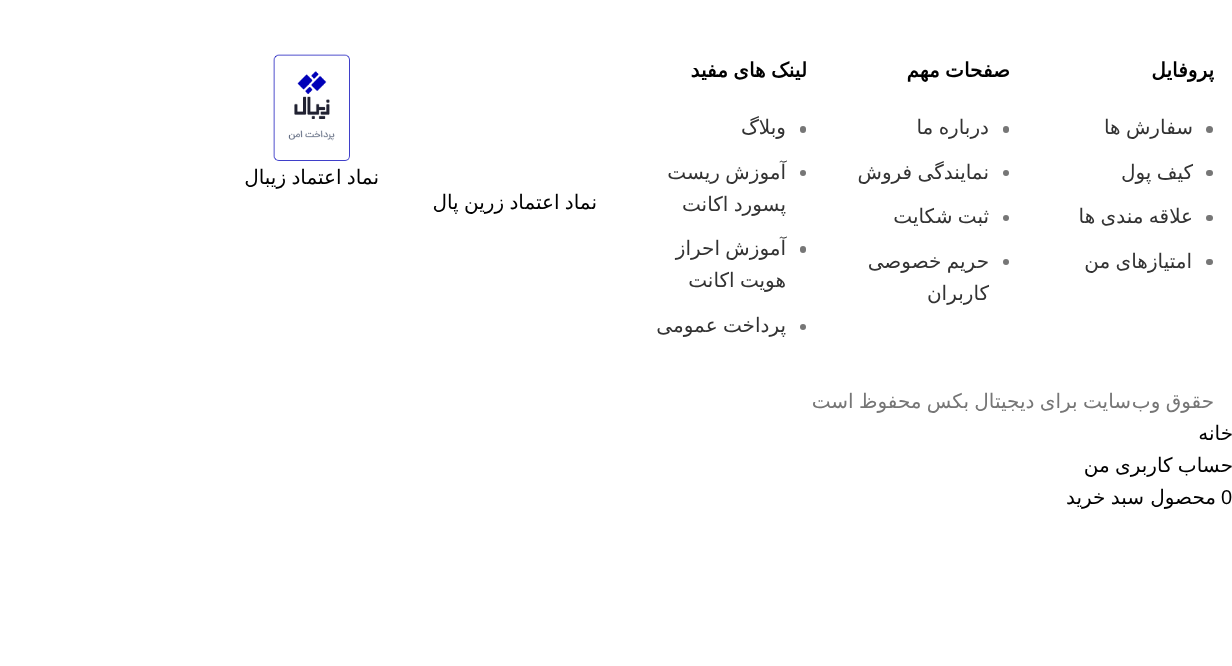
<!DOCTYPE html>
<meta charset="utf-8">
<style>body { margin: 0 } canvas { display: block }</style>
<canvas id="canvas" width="1232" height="666"></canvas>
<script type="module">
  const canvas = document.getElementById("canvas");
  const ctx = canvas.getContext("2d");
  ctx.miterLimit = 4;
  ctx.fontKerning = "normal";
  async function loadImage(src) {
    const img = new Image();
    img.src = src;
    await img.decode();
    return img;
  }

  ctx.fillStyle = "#ffffff";
  ctx.fillRect(0, 0, 1232, 666);
  ctx.direction = "rtl";
  ctx.font = "bold 20px DejaVu Sans";
  ctx.fillStyle = "#000000";
  ctx.fillText("پروفایل", 1214, 77);
  ctx.fillStyle = "#767676";
  ctx.beginPath();
  ctx.arc(1209.5, 129.5, 3.5, 0, Math.PI * 2);
  ctx.fill();
  ctx.wordSpacing = "-1px";
  ctx.font = "20px DejaVu Sans";
  ctx.fillStyle = "#333333";
  ctx.fillText("سفارش ها", 1193, 134);
  ctx.fillStyle = "#767676";
  ctx.beginPath();
  ctx.roundRect(1206, 170, 7, 6, 3);
  ctx.fill();
  ctx.fillStyle = "#333333";
  ctx.fillText("کیف پول", 1193, 179);
  ctx.fillStyle = "#767676";
  ctx.beginPath();
  ctx.roundRect(1206, 215, 7, 6, 3);
  ctx.fill();
  ctx.fillStyle = "#333333";
  ctx.fillText("علاقه مندی ها", 1193, 223);
  ctx.fillStyle = "#767676";
  ctx.beginPath();
  ctx.roundRect(1206, 259, 7, 6, 3);
  ctx.fill();
  ctx.fillStyle = "#333333";
  ctx.fillText("امتیازهای من", 1192, 268);
  ctx.font = "bold 20px DejaVu Sans";
  ctx.fillStyle = "#000000";
  ctx.fillText("صفحات مهم", 1010, 77);
  ctx.fillStyle = "#767676";
  ctx.beginPath();
  ctx.roundRect(1003, 126, 6, 7, 3);
  ctx.fill();
  ctx.font = "20px DejaVu Sans";
  ctx.fillStyle = "#333333";
  ctx.fillText("درباره ما", 989, 134);
  ctx.fillStyle = "#767676";
  ctx.beginPath();
  ctx.arc(1006, 173, 3, 0, Math.PI * 2);
  ctx.fill();
  ctx.fillStyle = "#333333";
  ctx.fillText("نمایندگی فروش", 989, 179);
  ctx.fillStyle = "#767676";
  ctx.beginPath();
  ctx.arc(1006, 218, 3, 0, Math.PI * 2);
  ctx.fill();
  ctx.fillStyle = "#333333";
  ctx.fillText("ثبت شکایت", 989, 223);
  ctx.fillStyle = "#767676";
  ctx.beginPath();
  ctx.arc(1006, 262, 3, 0, Math.PI * 2);
  ctx.fill();
  ctx.fillStyle = "#333333";
  ctx.fillText("حریم خصوصی", 989, 268);
  ctx.wordSpacing = "0px";
  ctx.fillText("کاربران", 989, 300);
  ctx.wordSpacing = "-1px";
  ctx.font = "bold 20px DejaVu Sans";
  ctx.fillStyle = "#000000";
  ctx.fillText("لینک های مفید", 807, 77);
  ctx.fillStyle = "#767676";
  ctx.beginPath();
  ctx.roundRect(800, 126, 6, 7, 3);
  ctx.fill();
  ctx.wordSpacing = "0px";
  ctx.font = "20px DejaVu Sans";
  ctx.fillStyle = "#333333";
  ctx.fillText("وبلاگ", 786, 134);
  ctx.fillStyle = "#767676";
  ctx.beginPath();
  ctx.arc(803, 173, 3, 0, Math.PI * 2);
  ctx.fill();
  ctx.wordSpacing = "-1px";
  ctx.fillStyle = "#333333";
  ctx.fillText("آموزش ریست", 786, 179);
  ctx.fillText("پسورد اکانت", 786, 211);
  ctx.fillStyle = "#767676";
  ctx.beginPath();
  ctx.roundRect(800, 246, 6, 7, 3);
  ctx.fill();
  ctx.fillStyle = "#333333";
  ctx.fillText("آموزش احراز", 786, 255);
  ctx.fillText("هویت اکانت", 786, 287);
  ctx.fillStyle = "#767676";
  ctx.beginPath();
  ctx.arc(803, 327, 3, 0, Math.PI * 2);
  ctx.fill();
  ctx.fillStyle = "#333333";
  ctx.fillText("پرداخت عمومی", 786, 332);
  ctx.drawImage(await loadImage("img1.png"), 273, 54, 77, 107);
  ctx.fillStyle = "#000000";
  ctx.fillText("نماد اعتماد زیبال", 379, 184);
  ctx.fillText("نماد اعتماد زرین پال", 597, 209);
  ctx.fillStyle = "#767676";
  ctx.fillText("حقوق وب", 1214, 408);
  ctx.fillText("سایت برای دیجیتال بکس محفوظ است", 1131, 408);
  ctx.wordSpacing = "0px";
  ctx.fillStyle = "#000000";
  ctx.fillText("خانه", 1233, 440);
  ctx.wordSpacing = "-1px";
  ctx.fillText("حساب کاربری من", 1233, 472);
  ctx.wordSpacing = "0px";
  ctx.direction = "ltr";
  ctx.font = "20px Liberation Sans";
  ctx.fillText("0", 1221, 504);
  ctx.direction = "rtl";
  ctx.font = "20px DejaVu Sans";
  ctx.fillText("محصول", 1216, 504);
  ctx.wordSpacing = "-1px";
  ctx.fillText("سبد خرید", 1144, 504);
</script>
